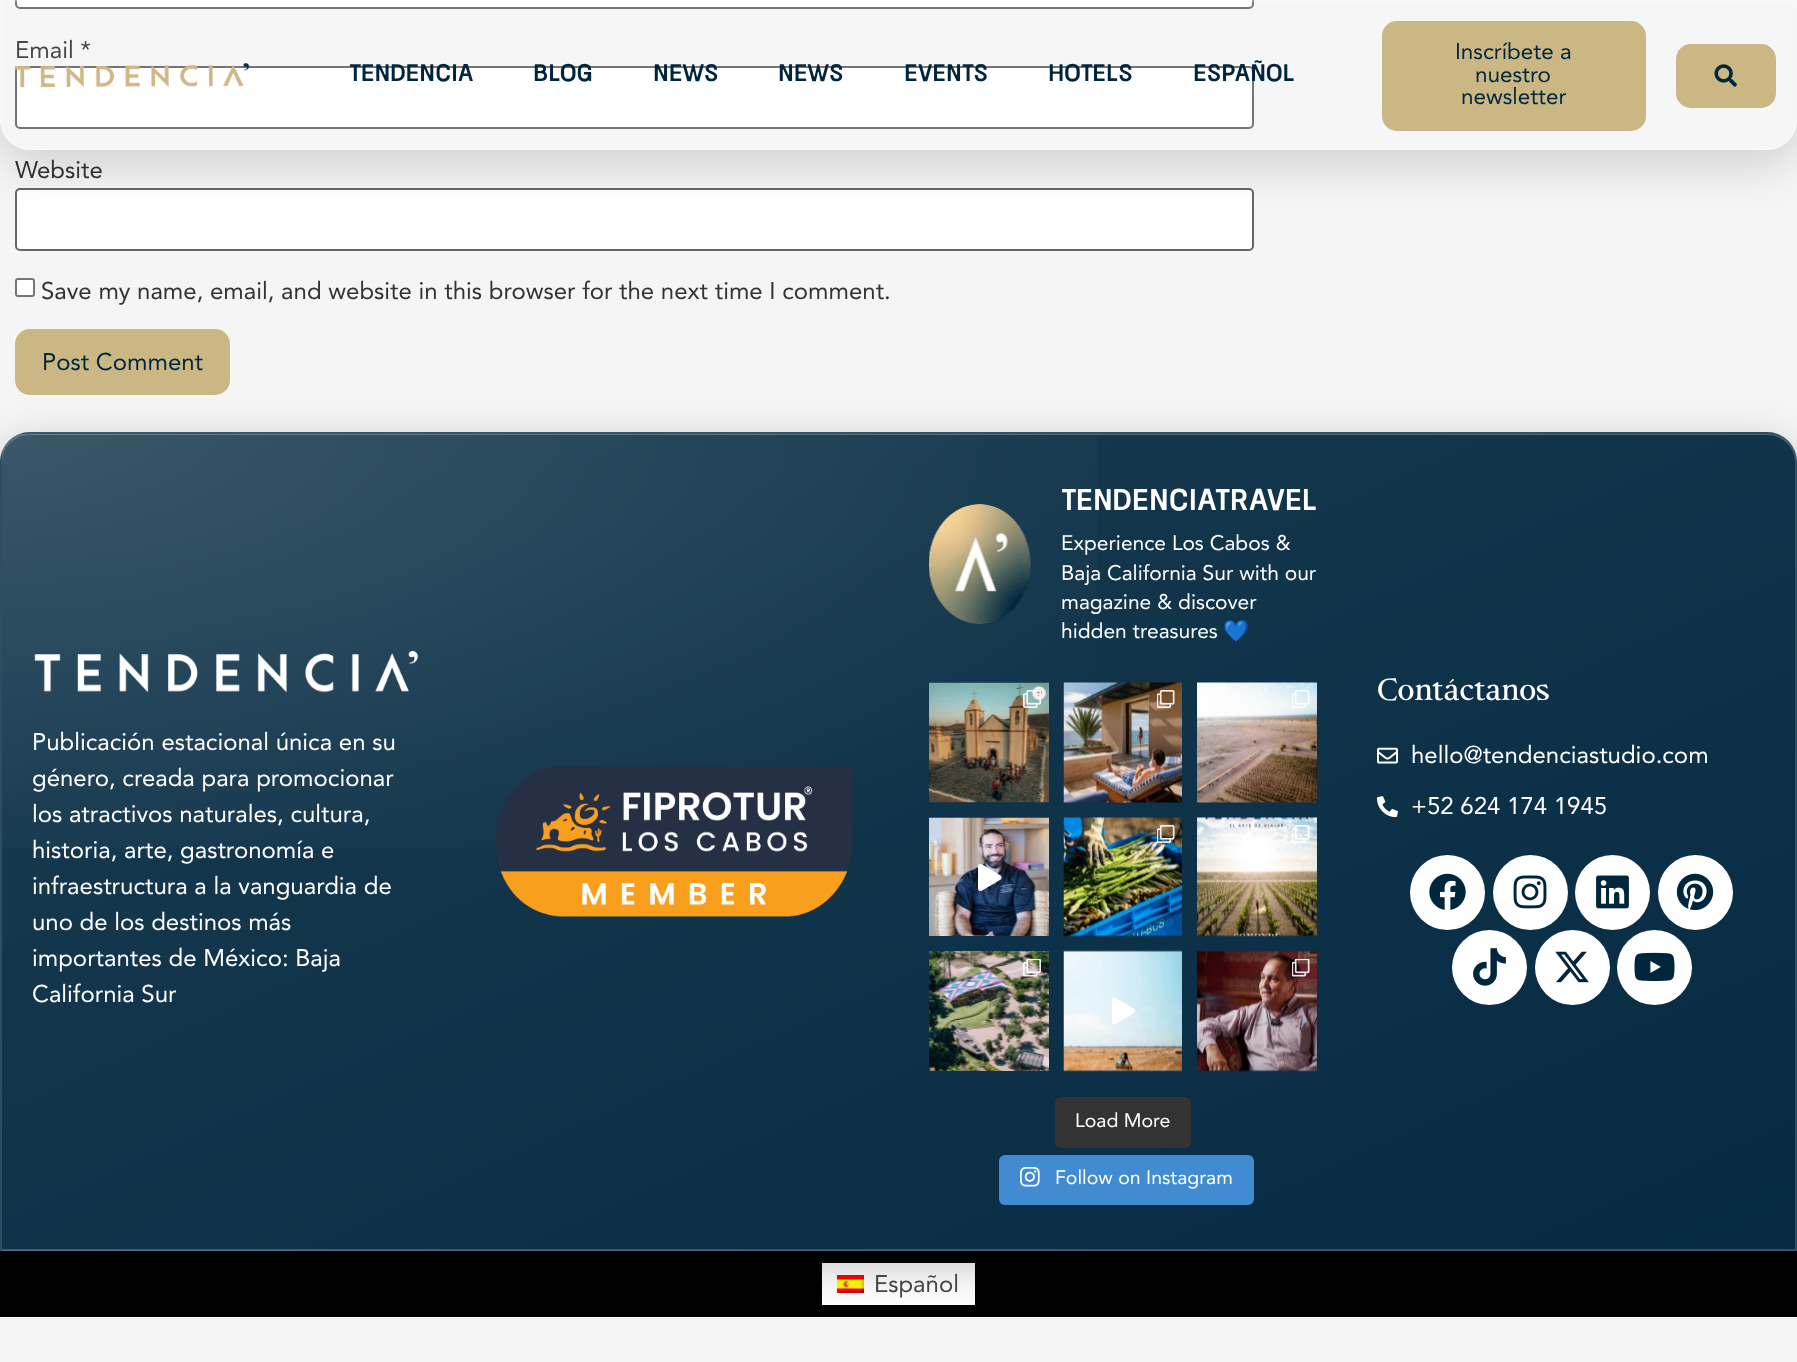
<!DOCTYPE html>
<meta charset="utf-8">
<style>body { margin: 0 } canvas { display: block }</style>
<canvas id="canvas" width="1797" height="1362"></canvas>
<script type="module">
  const canvas = document.getElementById("canvas");
  const ctx = canvas.getContext("2d");
  ctx.miterLimit = 4;
  ctx.fontKerning = "normal";
  async function loadImage(src) {
    const img = new Image();
    img.src = src;
    await img.decode();
    return img;
  }
  let gradient;

  ctx.fillStyle = "#f5f5f5";
  ctx.fillRect(0, 0, 1797, 1362);
  ctx.fillStyle = "#ffffff";
  ctx.beginPath();
  ctx.roundRect(16, -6, 1237, 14, 4);
  ctx.fill();
  ctx.strokeStyle = "#666666";
  ctx.lineWidth = 2;
  ctx.stroke();
  ctx.font = "24px Avenir";
  ctx.fillStyle = "#333333";
  ctx.fillText("Email *", 15, 58);
  ctx.fillStyle = "#ffffff";
  ctx.beginPath();
  ctx.roundRect(16, 67, 1237, 61, 4);
  ctx.fill();
  ctx.stroke();
  ctx.fillStyle = "#333333";
  ctx.fillText("Website", 15, 178);
  ctx.fillStyle = "#ffffff";
  ctx.beginPath();
  ctx.roundRect(16, 189, 1237, 61, 4);
  ctx.fill();
  ctx.stroke();
  ctx.beginPath();
  ctx.roundRect(16, 279, 18, 17, 2);
  ctx.fill();
  ctx.strokeStyle = "#767676";
  ctx.stroke();
  ctx.fillStyle = "#333333";
  ctx.fillText("Save my name, email, and website in this browser for the next time I comment.", 41, 299);
  ctx.fillStyle = "#cab783";
  ctx.beginPath();
  ctx.roundRect(16.5, 330.5, 212, 63, 13.5);
  ctx.fill();
  ctx.strokeStyle = "#cab783";
  ctx.lineWidth = 3;
  ctx.stroke();
  ctx.fillStyle = "#00263e";
  ctx.fillText("Post Comment", 42, 370);
  ctx.save();
  ctx.beginPath();
  ctx.moveTo(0, 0);
  ctx.lineTo(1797, 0);
  ctx.lineTo(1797, 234);
  ctx.lineTo(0, 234);
  ctx.closePath();
  ctx.moveTo(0, 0);
  ctx.lineTo(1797, 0);
  ctx.lineTo(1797, 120);
  ctx.bezierCurveTo(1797, 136.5, 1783.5, 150, 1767, 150);
  ctx.lineTo(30, 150);
  ctx.bezierCurveTo(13.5, 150, 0, 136.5, 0, 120);
  ctx.closePath();
  ctx.clip("evenodd");
  ctx.fillStyle = "rgba(0, 0, 0, 0.15)";
  ctx.filter = "blur(22.5px)";
  ctx.beginPath();
  ctx.roundRect(0, 15, 1797, 150, 30);
  ctx.fill();
  ctx.filter = "none";
  ctx.restore();
  ctx.fillStyle = "rgba(255, 255, 255, 0.1)";
  ctx.beginPath();
  ctx.roundRect(0, 0, 1797, 150, [0, 0, 30, 30]);
  ctx.fill();
  ctx.beginPath();
  ctx.roundRect(1, 1, 1795, 148, [0, 0, 29, 29]);
  ctx.strokeStyle = "rgba(255, 255, 255, 0.25)";
  ctx.lineWidth = 2;
  ctx.stroke();
  ctx.drawImage(await loadImage("img1.png"), 14, 63, 236, 25);
  ctx.font = "24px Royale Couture";
  ctx.fillStyle = "#00263e";
  ctx.fillText("Tendencia", 349, 81);
  ctx.fillText("Blog", 533, 81);
  ctx.fillText("News", 653, 81);
  ctx.fillText("News", 778, 81);
  ctx.fillText("Events", 904, 81);
  ctx.fillText("Hotels", 1048, 81);
  ctx.fillText("Español", 1193, 81);
  ctx.fillStyle = "#cab783";
  ctx.beginPath();
  ctx.roundRect(1383.5, 22.5, 261, 107, 13.5);
  ctx.fill();
  ctx.strokeStyle = "#cab783";
  ctx.lineWidth = 3;
  ctx.stroke();
  ctx.font = "22.5px Avenir";
  ctx.fillStyle = "#00263e";
  ctx.fillText("Inscríbete a", 1455, 59);
  ctx.fillText("nuestro", 1475, 82);
  ctx.fillText("newsletter", 1461, 104);
  ctx.fillStyle = "#cab783";
  ctx.beginPath();
  ctx.roundRect(1677.5, 45.5, 97, 61, 13.5);
  ctx.fill();
  ctx.stroke();
  ctx.drawImage(await loadImage("img2.png"), 1714, 64, 23, 23);
  ctx.fillStyle = "#000000";
  ctx.fillRect(0, 1251, 1797, 66);
  ctx.fillStyle = "#ffffff";
  ctx.fillRect(822, 1263, 153, 42);
  ctx.drawImage(await loadImage("img34.png"), 837, 1275, 27, 18);
  ctx.fillStyle = "rgba(0, 0, 0, 0.25)";
  ctx.filter = "blur(22.5px)";
  ctx.beginPath();
  ctx.roundRect(0, 447, 1797, 819, 30);
  ctx.fill();
  ctx.filter = "none";
  ctx.fillStyle = "#00263e";
  ctx.beginPath();
  ctx.roundRect(0, 432, 1797, 819, [30, 30, 0, 0]);
  ctx.fill();
  ctx.save();
  ctx.beginPath();
  ctx.roundRect(0, 432, 1797, 819, [30, 30, 0, 0]);
  ctx.clip();
  gradient = ctx.createRadialGradient(1.5, 1145.1, 0, 1.5, 1145.1, 2153);
  gradient.addColorStop(0, "rgba(255, 255, 255, 0.14)");
  gradient.addColorStop(0.6, "rgba(255, 255, 255, 0)");
  ctx.fillStyle = gradient;
  ctx.beginPath();
  ctx.rect(2, 434, 1095, 414);
  ctx.save();
  ctx.clip();
  ctx.scale(1, 816 / 2153);
  ctx.fillRect(0, 0, 1797, 3594);
  ctx.restore();
  ctx.restore();
  gradient = ctx.createRadialGradient(1.5, 3298.1, 0, 1.5, 3298.1, 2153);
  gradient.addColorStop(0, "#244459");
  gradient.addColorStop(0.6, "#00263e");
  ctx.fillStyle = gradient;
  ctx.beginPath();
  ctx.rect(2, 1250, 1206, 1);
  ctx.save();
  ctx.clip();
  ctx.scale(1, 816 / 2153);
  ctx.fillRect(0, 0, 1797, 3594);
  ctx.restore();
  gradient = ctx.createLinearGradient(591, -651, 1206, 702);
  gradient.addColorStop(0, "rgba(255, 255, 255, 0.1)");
  gradient.addColorStop(1, "rgba(255, 255, 255, 0.02)");
  ctx.fillStyle = gradient;
  ctx.fillRect(20, 432, 1709, 2);
  ctx.save();
  ctx.beginPath();
  ctx.roundRect(0, 432, 1797, 819, [30, 30, 0, 0]);
  ctx.clip();
  gradient = ctx.createLinearGradient(591, 165, 1206, 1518);
  gradient.addColorStop(0, "rgba(255, 255, 255, 0.1)");
  gradient.addColorStop(1, "rgba(255, 255, 255, 0.02)");
  ctx.fillStyle = gradient;
  ctx.fillRect(2, 434, 1794, 816);
  ctx.restore();
  gradient = ctx.createLinearGradient(591, 981, 1206, 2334);
  gradient.addColorStop(0, "rgba(255, 255, 255, 0.1)");
  gradient.addColorStop(1, "rgba(255, 255, 255, 0.02)");
  ctx.fillStyle = gradient;
  ctx.fillRect(2, 1250, 1794, 1);
  ctx.fillStyle = "rgba(255, 255, 255, 0.25)";
  ctx.beginPath();
  ctx.moveTo(30, 435);
  ctx.lineTo(1767, 435);
  ctx.bezierCurveTo(1783, 435, 1796, 448, 1796, 464);
  ctx.bezierCurveTo(1796, 448, 1784, 434, 1767, 434);
  ctx.lineTo(31, 434);
  ctx.bezierCurveTo(14, 434, 2, 448, 2, 464);
  ctx.bezierCurveTo(2, 448, 14, 435, 30, 435);
  ctx.closePath();
  ctx.fill();
  ctx.beginPath();
  ctx.roundRect(1, 433, 1795, 817, [29, 29, 0, 0]);
  ctx.strokeStyle = "rgba(255, 255, 255, 0.18)";
  ctx.lineWidth = 2;
  ctx.stroke();
  ctx.drawImage(await loadImage("img3.png"), 34, 650, 384, 43);
  ctx.font = "24px Avenir";
  ctx.fillStyle = "#ffffff";
  ctx.fillText("Publicación estacional única en su", 32, 750);
  ctx.fillText("género, creada para promocionar", 32, 786);
  ctx.fillText("los atractivos naturales, cultura,", 32, 822);
  ctx.fillText("historia, arte, gastronomía e", 32, 858);
  ctx.fillText("infraestructura a la vanguardia de", 32, 894);
  ctx.fillText("uno de los destinos más", 32, 930);
  ctx.fillText("importantes de México: Baja", 32, 966);
  ctx.fillText("California Sur", 32, 1002);
  ctx.drawImage(await loadImage("img4.png"), 495, 766, 358, 151);
  ctx.drawImage(await loadImage("img5.png"), 929, 504, 102, 120);
  ctx.font = "30px Royale Couture";
  ctx.fillText("tendenciatravel", 1061, 510);
  ctx.font = "21px Avenir";
  ctx.fillText("Experience Los Cabos &", 1061, 550);
  ctx.fillText("Baja California Sur with our", 1061, 580);
  ctx.fillText("magazine & discover", 1061, 609);
  ctx.fillText("hidden treasures", 1061, 638);
  ctx.font = "21px Noto Color Emoji";
  ctx.fillText("💙", 1223, 638);
  ctx.drawImage(await loadImage("img6.png"), 929, 682, 120, 121);
  ctx.drawImage(await loadImage("img7.png"), 1023, 690, 18, 18);
  ctx.drawImage(await loadImage("img8.png"), 1063, 682, 119, 121);
  ctx.drawImage(await loadImage("img9.png"), 1157, 690, 18, 18);
  ctx.drawImage(await loadImage("img10.png"), 1197, 682, 120, 121);
  ctx.drawImage(await loadImage("img11.png"), 1292, 690, 18, 18);
  ctx.drawImage(await loadImage("img12.png"), 929, 817, 120, 119);
  ctx.drawImage(await loadImage("img13.png"), 978, 864, 24, 27);
  ctx.drawImage(await loadImage("img14.png"), 1063, 817, 119, 120);
  ctx.drawImage(await loadImage("img15.png"), 1157, 825, 18, 18);
  ctx.drawImage(await loadImage("img16.png"), 1197, 817, 120, 120);
  ctx.drawImage(await loadImage("img17.png"), 1292, 825, 18, 18);
  ctx.drawImage(await loadImage("img18.png"), 929, 951, 120, 120);
  ctx.drawImage(await loadImage("img19.png"), 1023, 959, 18, 18);
  ctx.drawImage(await loadImage("img20.png"), 1063, 950, 119, 122);
  ctx.drawImage(await loadImage("img21.png"), 1112, 998, 23, 27);
  ctx.drawImage(await loadImage("img22.png"), 1197, 950, 120, 122);
  ctx.drawImage(await loadImage("img23.png"), 1292, 959, 18, 18);
  ctx.fillStyle = "#333333";
  ctx.beginPath();
  ctx.roundRect(1055, 1097, 136, 51, 6);
  ctx.fill();
  ctx.font = "19.5px Avenir";
  ctx.fillStyle = "#ffffff";
  ctx.fillText("Load More", 1075, 1127);
  ctx.fillStyle = "#408bd1";
  ctx.beginPath();
  ctx.roundRect(999, 1155, 255, 50, 6);
  ctx.fill();
  ctx.drawImage(await loadImage("img24.png"), 1020, 1167, 20, 20);
  ctx.fillStyle = "#ffffff";
  ctx.fillText("Follow on Instagram", 1055, 1184);
  ctx.font = "30px 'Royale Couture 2'";
  ctx.fillText("Contáctanos", 1377, 700);
  ctx.drawImage(await loadImage("img25.png"), 1377, 747, 21, 17);
  ctx.font = "24px Avenir";
  ctx.fillText("hello@tendenciastudio.com", 1411, 763);
  ctx.drawImage(await loadImage("img26.png"), 1377, 796, 21, 22);
  ctx.fillText("+52 624 174 1945", 1411, 814);
  ctx.beginPath();
  ctx.arc(1447.5, 892.5, 37.5, 0, Math.PI * 2);
  ctx.fill();
  ctx.drawImage(await loadImage("img27.png"), 1429, 873, 37, 37);
  ctx.beginPath();
  ctx.arc(1530.5, 892.5, 37.5, 0, Math.PI * 2);
  ctx.fill();
  ctx.drawImage(await loadImage("img28.png"), 1513, 875, 34, 34);
  ctx.beginPath();
  ctx.arc(1612.5, 892.5, 37.5, 0, Math.PI * 2);
  ctx.fill();
  ctx.drawImage(await loadImage("img29.png"), 1596, 875, 33, 34);
  ctx.beginPath();
  ctx.arc(1695.5, 892.5, 37.5, 0, Math.PI * 2);
  ctx.fill();
  ctx.drawImage(await loadImage("img30.png"), 1676, 873, 38, 38);
  ctx.beginPath();
  ctx.arc(1489.5, 967.5, 37.5, 0, Math.PI * 2);
  ctx.fill();
  ctx.drawImage(await loadImage("img31.png"), 1473, 948, 33, 38);
  ctx.beginPath();
  ctx.arc(1572.5, 967.5, 37.5, 0, Math.PI * 2);
  ctx.fill();
  ctx.drawImage(await loadImage("img32.png"), 1555, 951, 34, 32);
  ctx.beginPath();
  ctx.arc(1654.5, 967.5, 37.5, 0, Math.PI * 2);
  ctx.fill();
  ctx.drawImage(await loadImage("img33.png"), 1634, 952, 41, 29);
  ctx.fillStyle = "#444444";
  ctx.fillText("Español", 874, 1292);
</script>
